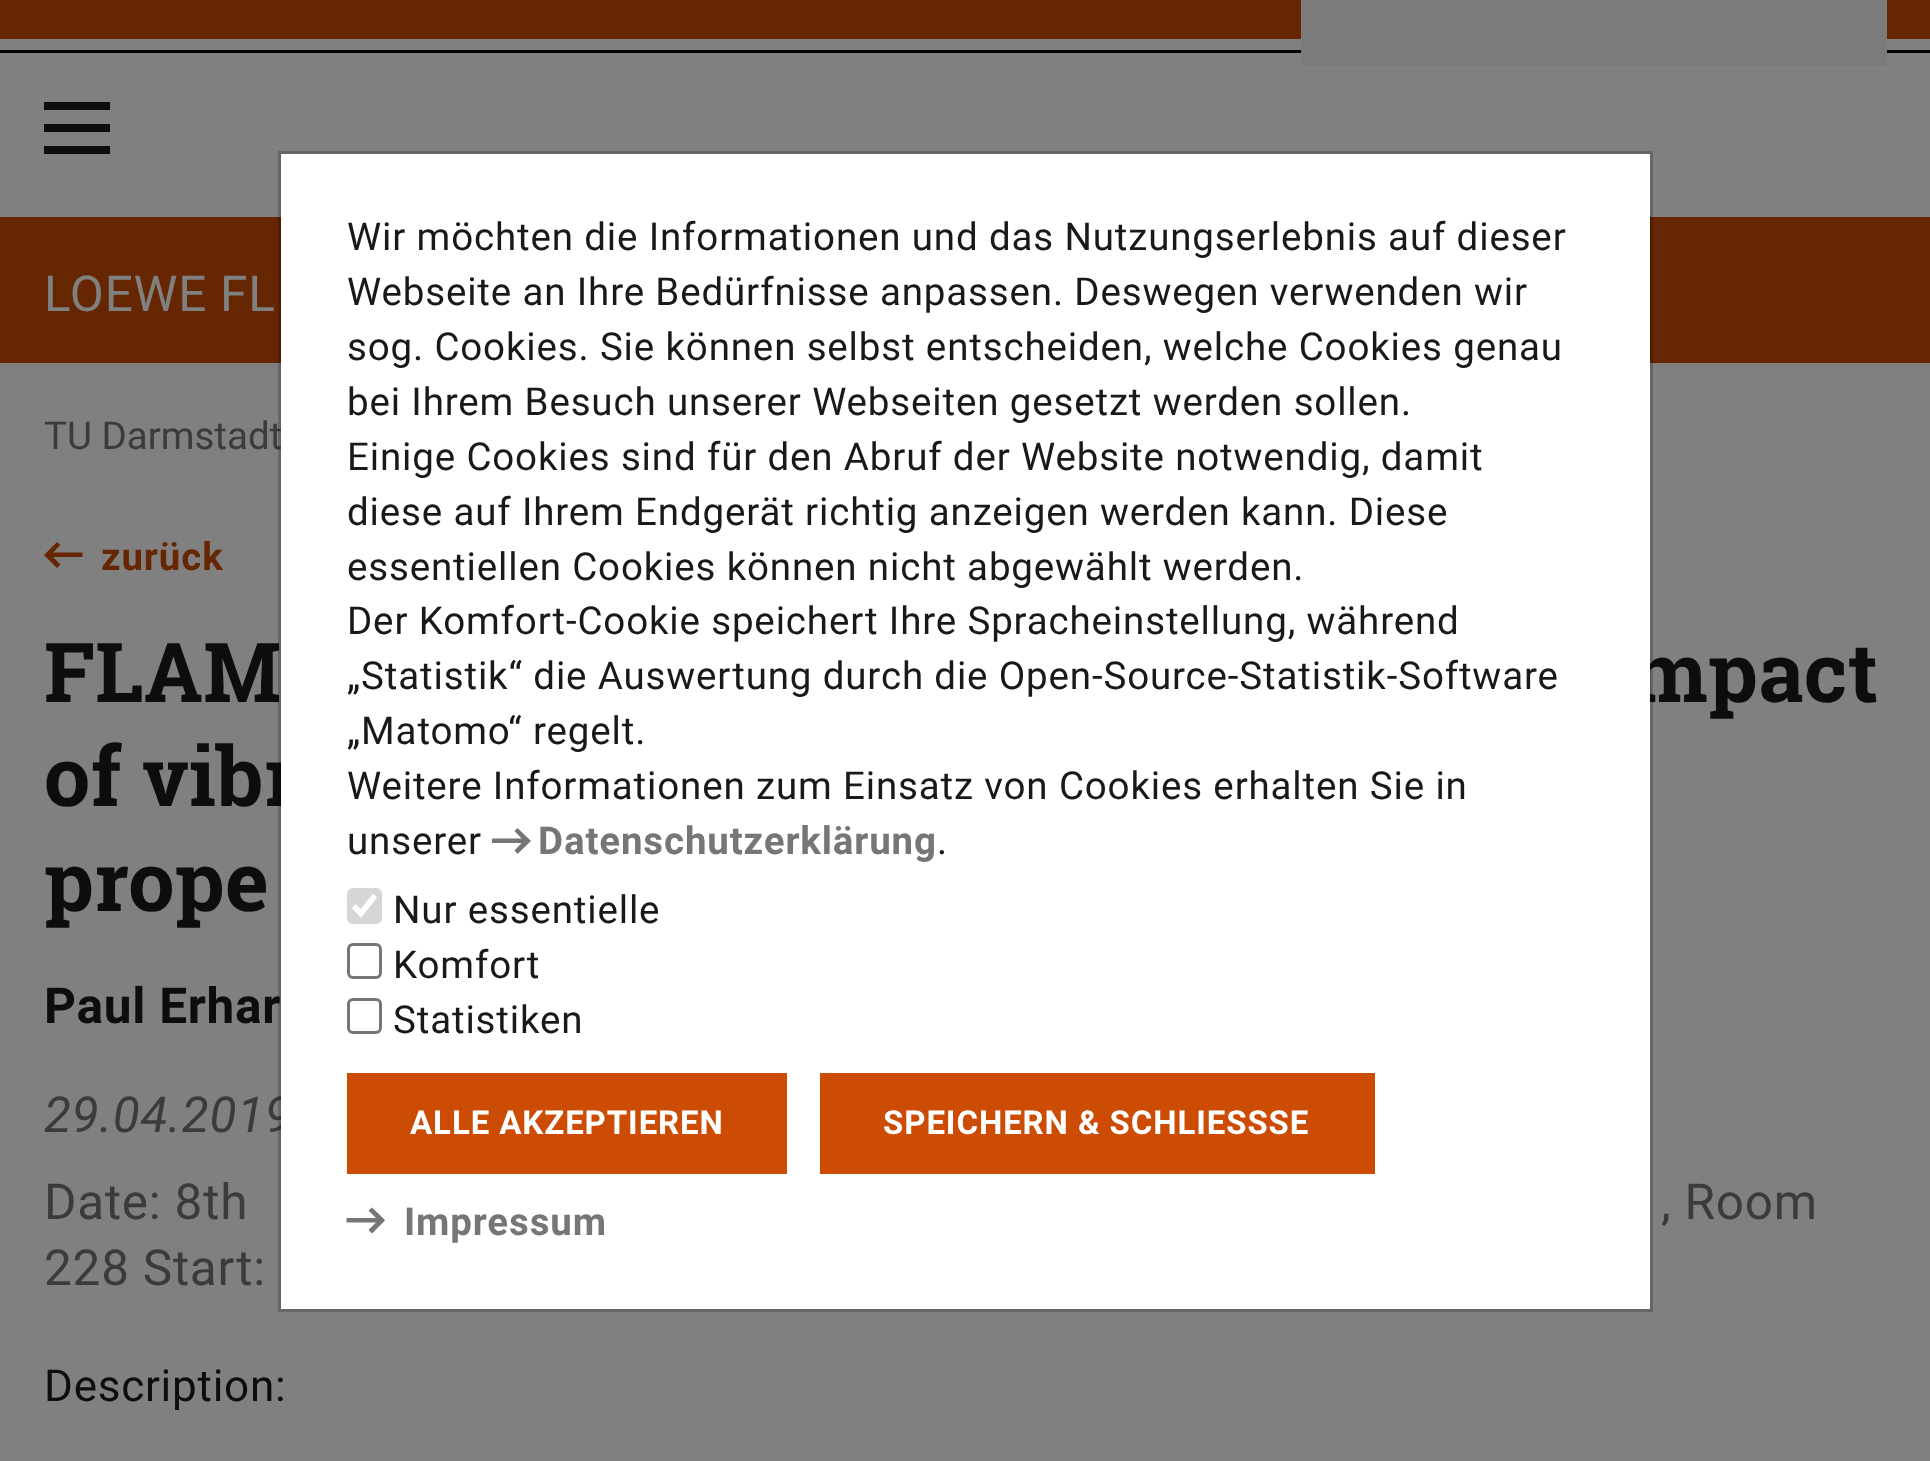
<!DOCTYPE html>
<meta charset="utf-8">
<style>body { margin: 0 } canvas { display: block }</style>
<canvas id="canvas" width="1930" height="1461"></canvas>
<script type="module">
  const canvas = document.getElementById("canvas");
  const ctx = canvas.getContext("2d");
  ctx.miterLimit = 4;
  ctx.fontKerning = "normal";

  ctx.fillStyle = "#808080";
  ctx.fillRect(0, 0, 1930, 1461);
  ctx.fillStyle = "#662602";
  ctx.fillRect(0, 217, 1930, 146);
  ctx.letterSpacing = "0.25px";
  ctx.font = "bold 82.5px Roboto Slab";
  ctx.fillStyle = "#0d0d0d";
  ctx.fillText("mpact", 1631, 702);
  ctx.fillText("of vibr", 44, 806);
  ctx.letterSpacing = "0.75px";
  ctx.font = "italic 49.5px Roboto";
  ctx.fillStyle = "#3b3b3b";
  ctx.fillText("29.04.2019", 44, 1132);
  ctx.fillStyle = "#ffffff";
  ctx.fillRect(281, 154, 1369, 1155);
  ctx.letterSpacing = "0px";
  ctx.font = "38.5px Roboto";
  ctx.fillStyle = "#3b3b3b";
  ctx.fillText("TU Darmstadt", 44, 449);
  ctx.letterSpacing = "0.25px";
  ctx.font = "bold 82.5px Roboto Slab";
  ctx.fillStyle = "#0d0d0d";
  ctx.fillText("FLAM", 44, 702);
  ctx.letterSpacing = "0.75px";
  ctx.font = "bold 49.5px Roboto";
  ctx.fillText("Paul Erhar", 44, 1023);
  ctx.strokeStyle = "rgba(0, 0, 0, 0.2)";
  ctx.lineWidth = 3;
  ctx.strokeRect(279.5, 152.5, 1372, 1158);
  ctx.letterSpacing = "0.85px";
  ctx.font = "38.5px Roboto";
  ctx.fillStyle = "#1a1919";
  ctx.fillText("Wir möchten die Informationen und das Nutzungserlebnis auf dieser", 347, 250);
  ctx.fillText("Webseite an Ihre Bedürfnisse anpassen. Deswegen verwenden wir", 347, 305);
  ctx.fillText("sog. Cookies. Sie können selbst entscheiden, welche Cookies genau", 347, 360);
  ctx.fillText("bei Ihrem Besuch unserer Webseiten gesetzt werden sollen.", 347, 415);
  ctx.fillText("Einige Cookies sind für den Abruf der Website notwendig, damit", 347, 470);
  ctx.fillText("diese auf Ihrem Endgerät richtig anzeigen werden kann. Diese", 347, 525);
  ctx.fillText("essentiellen Cookies können nicht abgewählt werden.", 347, 580);
  ctx.fillText("Der Komfort-Cookie speichert Ihre Spracheinstellung, während", 347, 634);
  ctx.fillText("„Statistik“ die Auswertung durch die Open-Source-Statistik-Software", 347, 689);
  ctx.fillText("„Matomo“ regelt.", 347, 744);
  ctx.fillText("Weitere Informationen zum Einsatz von Cookies erhalten Sie in", 347, 799);
  ctx.fillText("unserer", 347, 854);
  ctx.fillStyle = "#767676";
  ctx.beginPath();
  ctx.moveTo(529, 839);
  ctx.lineTo(531, 841);
  ctx.lineTo(529, 839);
  ctx.lineTo(531, 841);
  ctx.lineTo(517.5, 854);
  ctx.lineTo(514.5, 850.5);
  ctx.lineTo(521.5, 843);
  ctx.lineTo(492, 843);
  ctx.lineTo(492, 838.5);
  ctx.lineTo(521.5, 838.5);
  ctx.lineTo(514.5, 831);
  ctx.lineTo(517.5, 828);
  ctx.closePath();
  ctx.fill();
  ctx.font = "bold 38.5px Roboto";
  ctx.fillText("Datenschutzerklärung", 538, 854);
  ctx.font = "38.5px Roboto";
  ctx.fillStyle = "#1a1919";
  ctx.fillText(".", 937, 854);
  ctx.fillStyle = "#d6d6d6";
  ctx.beginPath();
  ctx.roundRect(347, 888, 35, 36, 6);
  ctx.fill();
  ctx.beginPath();
  ctx.moveTo(353.5, 906);
  ctx.lineTo(361, 913.5);
  ctx.lineTo(375, 895.5);
  ctx.strokeStyle = "#ffffff";
  ctx.lineWidth = 5.7;
  ctx.stroke();
  ctx.fillStyle = "#1a1919";
  ctx.fillText("Nur essentielle", 393, 923);
  ctx.beginPath();
  ctx.roundRect(348.5, 944.5, 32, 33, 4.5);
  ctx.strokeStyle = "#767676";
  ctx.lineWidth = 3;
  ctx.stroke();
  ctx.fillText("Komfort", 393, 978);
  ctx.beginPath();
  ctx.roundRect(348.5, 999.5, 32, 33, 4.5);
  ctx.stroke();
  ctx.fillText("Statistiken", 393, 1033);
  ctx.fillStyle = "#cc4c03";
  ctx.fillRect(347, 1073, 440, 101);
  ctx.letterSpacing = "0.9px";
  ctx.font = "bold 33px Roboto";
  ctx.fillStyle = "#ffffff";
  ctx.fillText("ALLE AKZEPTIEREN", 410, 1134);
  ctx.fillStyle = "#cc4c03";
  ctx.fillRect(820, 1073, 555, 101);
  ctx.fillStyle = "#ffffff";
  ctx.fillText("SPEICHERN & SCHLIESSSE", 883, 1134);
  ctx.fillStyle = "#767676";
  ctx.beginPath();
  ctx.moveTo(383.5, 1218.5);
  ctx.lineTo(385, 1220.5);
  ctx.lineTo(383.5, 1218.5);
  ctx.lineTo(385, 1220.5);
  ctx.lineTo(372, 1233.5);
  ctx.lineTo(368.5, 1230);
  ctx.lineTo(376, 1222.5);
  ctx.lineTo(346.5, 1222.5);
  ctx.lineTo(346.5, 1218);
  ctx.lineTo(376, 1218);
  ctx.lineTo(368.5, 1210.5);
  ctx.lineTo(372, 1207.5);
  ctx.closePath();
  ctx.fill();
  ctx.letterSpacing = "0.85px";
  ctx.font = "bold 38.5px Roboto";
  ctx.fillText("Impressum", 404, 1235);
  ctx.fillStyle = "#662602";
  ctx.fillRect(0, 0, 1930, 39);
  ctx.fillStyle = "#000000";
  ctx.fillRect(0, 50, 1930, 3);
  ctx.fillStyle = "#7b7b7b";
  ctx.fillRect(1301, 0, 586, 66);
  ctx.fillStyle = "#0d0d0d";
  ctx.fillRect(44, 124, 66, 8);
  ctx.fillRect(44, 102, 66, 8);
  ctx.fillRect(44, 146, 66, 8);
  ctx.letterSpacing = "0.75px";
  ctx.font = "49.5px Roboto";
  ctx.fillStyle = "#808080";
  ctx.fillText("LOEWE FL", 44, 311);
  ctx.fillStyle = "#662602";
  ctx.beginPath();
  ctx.moveTo(45.5, 556.5);
  ctx.lineTo(44, 555);
  ctx.lineTo(45.5, 556.5);
  ctx.lineTo(44, 555);
  ctx.lineTo(57, 542);
  ctx.lineTo(60.5, 545);
  ctx.lineTo(53, 552.5);
  ctx.lineTo(82.5, 552.5);
  ctx.lineTo(82.5, 557);
  ctx.lineTo(53, 557);
  ctx.lineTo(60.5, 564.5);
  ctx.lineTo(57, 568);
  ctx.closePath();
  ctx.fill();
  ctx.letterSpacing = "0.85px";
  ctx.font = "bold 38.5px Roboto";
  ctx.fillText("zurück", 101, 570);
  ctx.letterSpacing = "0.25px";
  ctx.font = "bold 82.5px Roboto Slab";
  ctx.fillStyle = "#0d0d0d";
  ctx.fillText("prope", 44, 911);
  ctx.letterSpacing = "0.75px";
  ctx.font = "49.5px Roboto";
  ctx.fillStyle = "#3b3b3b";
  ctx.fillText("Date: 8th", 44, 1219);
  ctx.fillText(", Room", 1661, 1219);
  ctx.fillText("228 Start:", 44, 1285);
  ctx.font = "44px Roboto";
  ctx.fillStyle = "#0d0d0d";
  ctx.fillText("Description:", 44, 1401);
</script>
